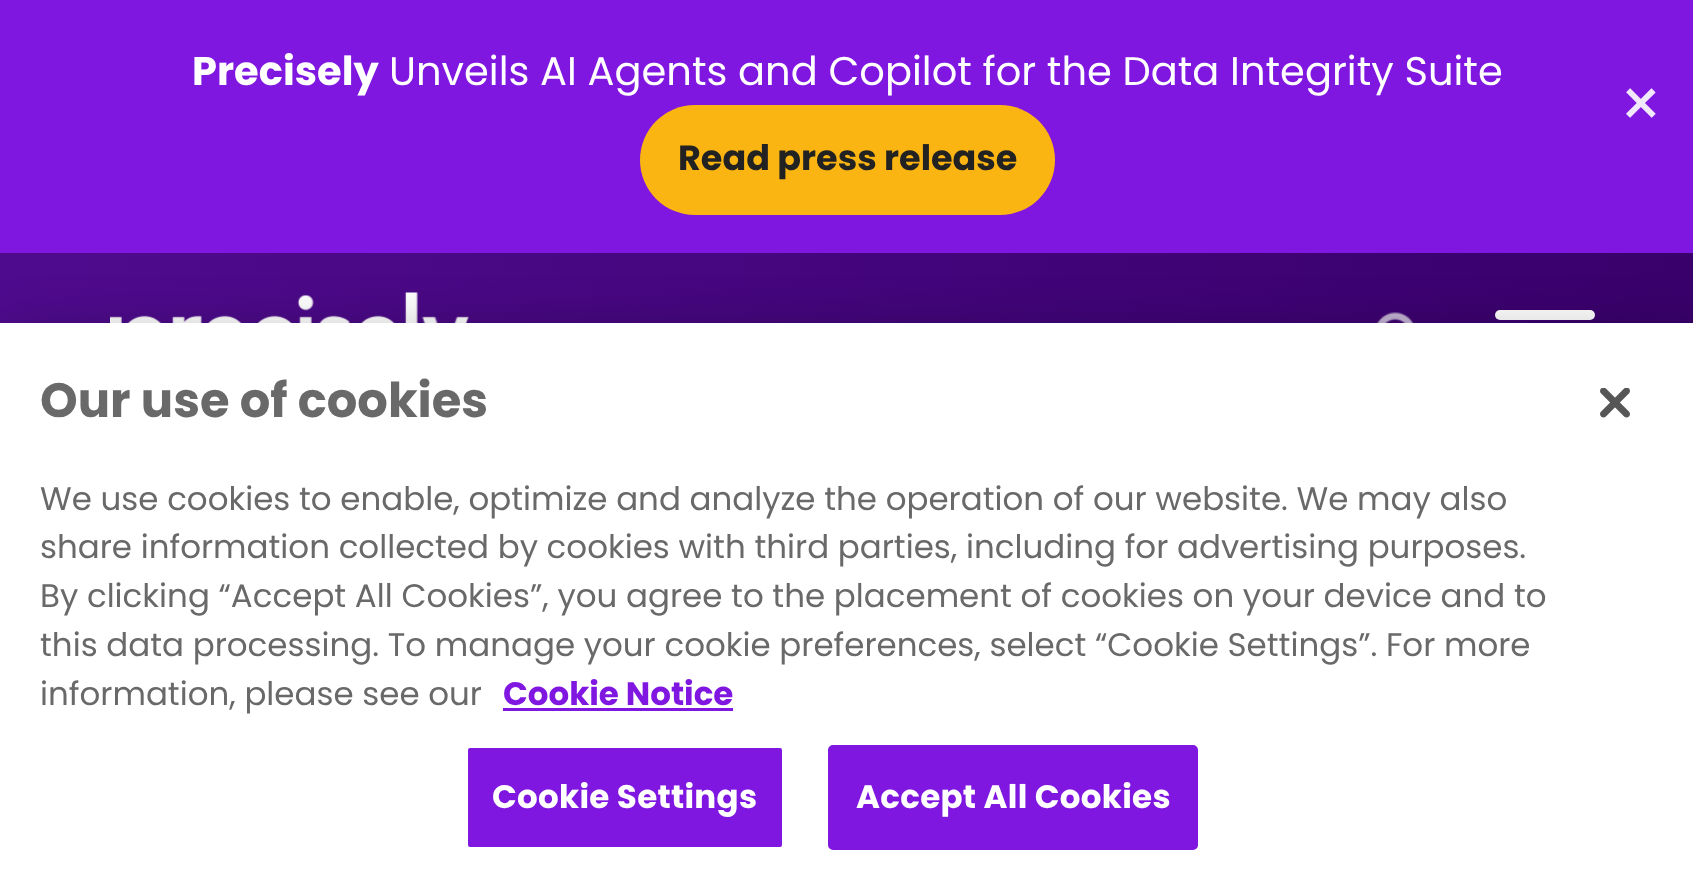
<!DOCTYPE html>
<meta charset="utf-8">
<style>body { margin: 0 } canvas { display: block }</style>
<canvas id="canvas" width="1693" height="888"></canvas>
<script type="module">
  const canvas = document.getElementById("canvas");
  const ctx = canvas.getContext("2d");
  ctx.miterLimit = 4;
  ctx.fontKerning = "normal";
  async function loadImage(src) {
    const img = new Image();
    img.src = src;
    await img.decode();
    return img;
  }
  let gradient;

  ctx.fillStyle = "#8017e1";
  ctx.fillRect(0, 0, 1693, 888);
  ctx.font = "bold 40px Poppins";
  ctx.fillStyle = "#ffffff";
  ctx.fillText("Precisely", 192, 85);
  ctx.font = "40px Poppins";
  ctx.fillText("Unveils AI Agents and Copilot for the Data Integrity Suite", 389, 85);
  ctx.fillStyle = "#fab512";
  ctx.beginPath();
  ctx.roundRect(640, 105, 415, 110, 55);
  ctx.fill();
  ctx.font = "bold 35px Poppins";
  ctx.fillStyle = "#222222";
  ctx.fillText("Read press release", 678, 170);
  ctx.font = "68px Poppins";
  ctx.fillStyle = "#f2e8fc";
  ctx.fillText("×", 1619, 128);
  gradient = ctx.createLinearGradient(0, 340, 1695, 340);
  gradient.addColorStop(0, "#4f0b8e");
  gradient.addColorStop(1, "#39006b");
  ctx.fillStyle = gradient;
  ctx.fillRect(0, 253, 1693, 70);
  ctx.drawImage(await loadImage("img1.png"), 110, 292, 359, 31);
  ctx.drawImage(await loadImage("img2.png"), 1376, 312, 38, 11);
  ctx.fillStyle = "#ffffff";
  ctx.beginPath();
  ctx.roundRect(1495, 310, 100, 10, 5);
  ctx.fill();
  ctx.fillStyle = "rgba(0, 0, 0, 0.2)";
  ctx.filter = "blur(22.5px)";
  ctx.beginPath();
  ctx.rect(0, 323, 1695, 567);
  ctx.fill();
  ctx.filter = "none";
  ctx.fillStyle = "#ffffff";
  ctx.fillRect(0, 323, 1693, 565);
  ctx.font = "bold 48px Poppins";
  ctx.fillStyle = "#696969";
  ctx.fillText("Our use of cookies", 40, 417);
  ctx.font = "32.5px Poppins";
  ctx.fillText("We use cookies to enable, optimize and analyze the operation of our website. We may also", 40, 510);
  ctx.fillText("share information collected by cookies with third parties, including for advertising purposes.", 40, 558);
  ctx.fillText("By clicking “Accept All Cookies”, you agree to the placement of cookies on your device and to", 40, 607);
  ctx.fillText("this data processing. To manage your cookie preferences, select “Cookie Settings”. For more", 40, 656);
  ctx.fillText("information, please see our", 40, 705);
  ctx.font = "bold 32.5px Poppins";
  ctx.fillStyle = "#8017e1";
  ctx.fillText("Cookie Notice", 503, 705);
  ctx.fillRect(503, 708, 230, 3);
  ctx.beginPath();
  ctx.roundRect(466.5, 746.5, 317, 102, 3.5);
  ctx.fill();
  ctx.strokeStyle = "#ffffff";
  ctx.lineWidth = 3;
  ctx.stroke();
  ctx.letterSpacing = "0.3px";
  ctx.fillStyle = "#ffffff";
  ctx.fillText("Cookie Settings", 492, 808);
  ctx.fillStyle = "#8017e1";
  ctx.beginPath();
  ctx.roundRect(829.5, 746.5, 367, 102, 3.5);
  ctx.fill();
  ctx.strokeStyle = "#8017e1";
  ctx.stroke();
  ctx.fillStyle = "#ffffff";
  ctx.fillText("Accept All Cookies", 856, 808);
  ctx.drawImage(await loadImage("img3.png"), 1600, 388, 30, 30);
</script>
